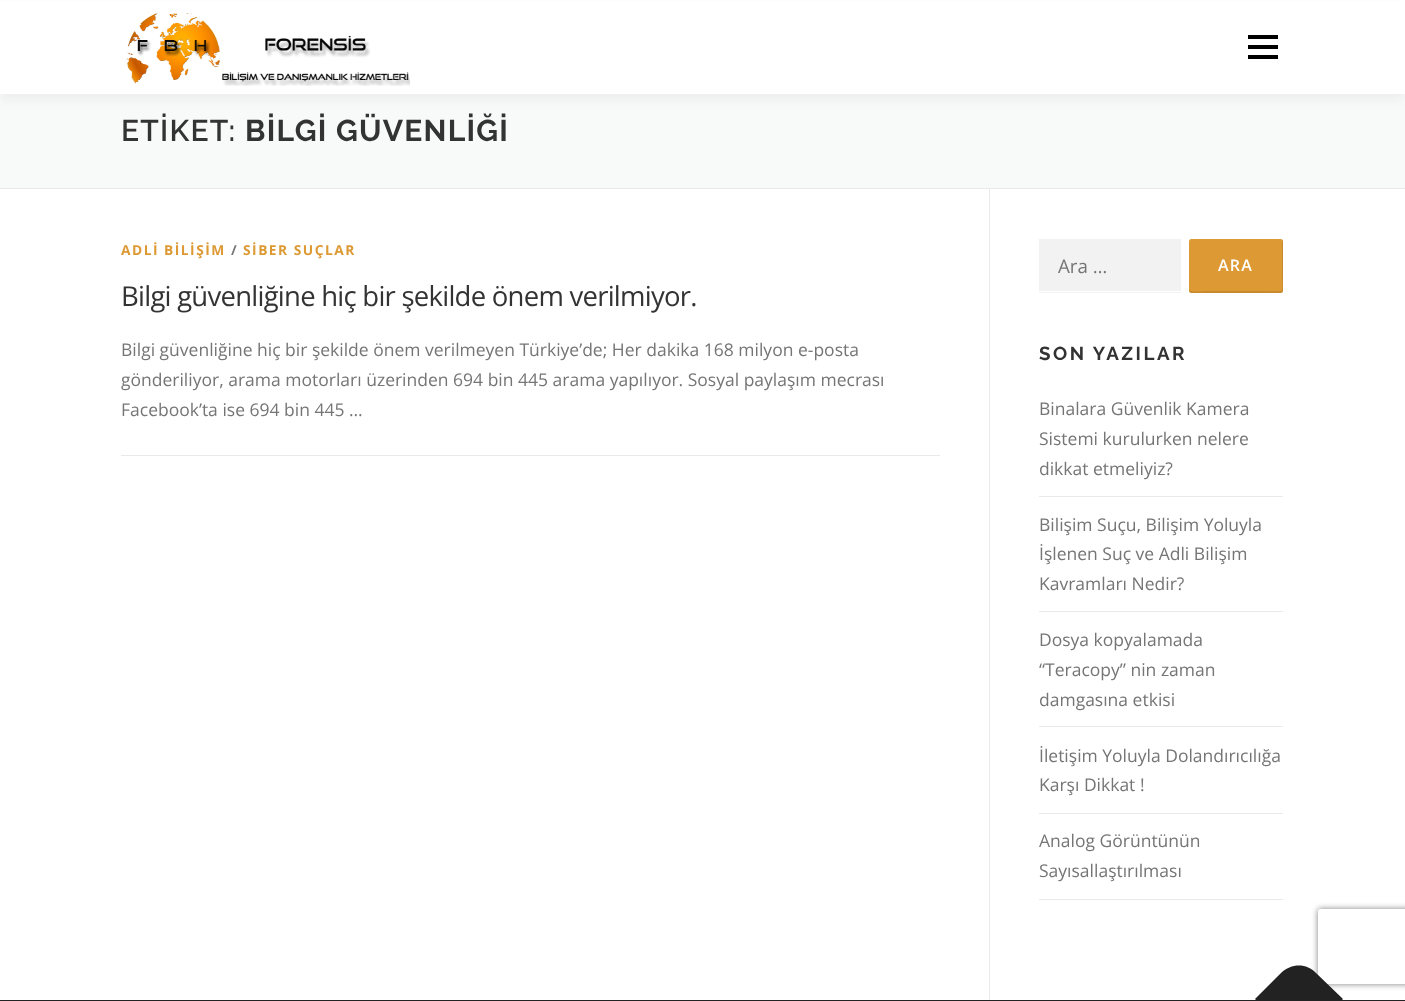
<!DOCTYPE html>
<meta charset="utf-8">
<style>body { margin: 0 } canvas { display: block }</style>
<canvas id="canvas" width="1405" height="1001"></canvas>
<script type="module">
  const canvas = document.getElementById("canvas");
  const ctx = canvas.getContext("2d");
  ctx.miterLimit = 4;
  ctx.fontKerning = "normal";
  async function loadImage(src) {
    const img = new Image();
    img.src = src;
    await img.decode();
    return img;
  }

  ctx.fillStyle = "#ffffff";
  ctx.fillRect(0, 0, 1405, 1001);
  ctx.fillStyle = "#f8f9f9";
  ctx.fillRect(0, 94, 1405, 94);
  ctx.fillStyle = "rgba(50, 50, 50, 0.06)";
  ctx.filter = "blur(6px)";
  ctx.beginPath();
  ctx.rect(0, 6, 1405, 94);
  ctx.fill();
  ctx.filter = "none";
  ctx.fillStyle = "#ffffff";
  ctx.fillRect(0, 1, 1405, 93);
  ctx.drawImage(await loadImage("img1.png"), 126, 12, 284, 74);
  ctx.fillStyle = "#000000";
  ctx.fillRect(1248, 45, 30, 4);
  ctx.fillRect(1248, 35, 30, 4);
  ctx.fillRect(1248, 55, 30, 4);
  ctx.fillStyle = "#e9e9e9";
  ctx.fillRect(0, 188, 1405, 1);
  ctx.letterSpacing = "1.25px";
  ctx.font = "600 30px Raleway";
  ctx.fillStyle = "#333333";
  ctx.fillText("ETİKET:", 121, 141);
  ctx.font = "bold 30px Raleway";
  ctx.fillText("BİLGİ GÜVENLİĞİ", 245, 141);
  ctx.fillStyle = "#e9e9e9";
  ctx.fillRect(121, 455, 819, 1);
  ctx.letterSpacing = "1.5px";
  ctx.font = "bold 13.75px Open Sans";
  ctx.fillStyle = "#dd9933";
  ctx.fillText("ADLİ BİLİŞİM", 121, 255);
  ctx.fillStyle = "#757575";
  ctx.fillText("/", 231, 255);
  ctx.fillStyle = "#dd9933";
  ctx.fillText("SİBER SUÇLAR", 243, 255);
  ctx.letterSpacing = "-0.75px";
  ctx.font = "27.5px Open Sans";
  ctx.fillStyle = "#333333";
  ctx.fillText("Bilgi güvenliğine hiç bir şekilde önem verilmiyor.", 121, 306);
  ctx.letterSpacing = "0px";
  ctx.font = "17.5px Open Sans";
  ctx.fillStyle = "#757575";
  ctx.fillText("Bilgi güvenliğine hiç bir şekilde önem verilmeyen Türkiye’de; Her dakika 168 milyon e-posta", 121, 356);
  ctx.fillText("gönderiliyor, arama motorları üzerinden 694 bin 445 arama yapılıyor. Sosyal paylaşım mecrası", 121, 386);
  ctx.fillText("Facebook’ta ise 694 bin 445 …", 121, 416);
  ctx.fillStyle = "#e9e9e9";
  ctx.fillRect(989, 189, 1, 811);
  ctx.fillStyle = "#f2f2f2";
  ctx.fillRect(1039, 239, 142, 54);
  ctx.fillStyle = "#ffffff";
  ctx.fillRect(1039, 291, 142, 1);
  ctx.font = "18.75px Open Sans";
  ctx.fillStyle = "#757575";
  ctx.fillText("Ara …", 1058, 273);
  ctx.fillStyle = "#dd9933";
  ctx.beginPath();
  ctx.roundRect(1189, 239, 94, 54, 2.5);
  ctx.fill();
  ctx.fillStyle = "rgba(0, 0, 0, 0.1)";
  ctx.beginPath();
  ctx.moveTo(1189, 289);
  ctx.lineTo(1189, 290);
  ctx.bezierCurveTo(1189, 292, 1190, 293, 1192, 293);
  ctx.lineTo(1280, 293);
  ctx.bezierCurveTo(1282, 293, 1283, 292, 1283, 290);
  ctx.lineTo(1283, 242);
  ctx.bezierCurveTo(1283, 241, 1283, 240, 1282, 239);
  ctx.lineTo(1282, 273);
  ctx.bezierCurveTo(1282, 295, 1287, 291, 1265, 291);
  ctx.lineTo(1206, 291);
  ctx.bezierCurveTo(1203, 291, 1189, 293, 1189, 289);
  ctx.closePath();
  ctx.fill();
  ctx.letterSpacing = "1.25px";
  ctx.font = "600 16px Open Sans";
  ctx.fillStyle = "#ffffff";
  ctx.fillText("ARA", 1218, 271);
  ctx.letterSpacing = "2.5px";
  ctx.font = "bold 18.75px Raleway";
  ctx.fillStyle = "#333333";
  ctx.fillText("SON YAZILAR", 1039, 360);
  ctx.fillStyle = "#e9e9e9";
  ctx.fillRect(1039, 496, 244, 1);
  ctx.letterSpacing = "0px";
  ctx.font = "17.5px Open Sans";
  ctx.fillStyle = "#757575";
  ctx.fillText("Binalara Güvenlik Kamera", 1039, 415);
  ctx.fillText("Sistemi kurulurken nelere", 1039, 445);
  ctx.fillText("dikkat etmeliyiz?", 1039, 475);
  ctx.fillStyle = "#e9e9e9";
  ctx.fillRect(1039, 611, 244, 1);
  ctx.fillStyle = "#757575";
  ctx.fillText("Bilişim Suçu, Bilişim Yoluyla", 1039, 531);
  ctx.fillText("İşlenen Suç ve Adli Bilişim", 1039, 560);
  ctx.fillText("Kavramları Nedir?", 1039, 590);
  ctx.fillStyle = "#e9e9e9";
  ctx.fillRect(1039, 726, 244, 1);
  ctx.fillStyle = "#757575";
  ctx.fillText("Dosya kopyalamada", 1039, 646);
  ctx.fillText("“Teracopy” nin zaman", 1039, 676);
  ctx.fillText("damgasına etkisi", 1039, 706);
  ctx.fillStyle = "#e9e9e9";
  ctx.fillRect(1039, 813, 244, 1);
  ctx.fillStyle = "#757575";
  ctx.fillText("İletişim Yoluyla Dolandırıcılığa", 1039, 762);
  ctx.fillText("Karşı Dikkat !", 1039, 791);
  ctx.fillStyle = "#e9e9e9";
  ctx.fillRect(1039, 899, 244, 1);
  ctx.fillStyle = "#757575";
  ctx.fillText("Analog Görüntünün", 1039, 847);
  ctx.fillText("Sayısallaştırılması", 1039, 877);
  ctx.fillStyle = "#222222";
  ctx.fillRect(0, 1000, 1405, 1);
  ctx.save();
  ctx.beginPath();
  ctx.moveTo(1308, 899);
  ctx.lineTo(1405, 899);
  ctx.lineTo(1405, 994);
  ctx.lineTo(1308, 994);
  ctx.closePath();
  ctx.moveTo(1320.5, 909);
  ctx.lineTo(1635.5, 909);
  ctx.bezierCurveTo(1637, 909, 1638, 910, 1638, 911.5);
  ctx.lineTo(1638, 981.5);
  ctx.bezierCurveTo(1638, 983, 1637, 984, 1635.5, 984);
  ctx.lineTo(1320.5, 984);
  ctx.bezierCurveTo(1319, 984, 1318, 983, 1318, 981.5);
  ctx.lineTo(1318, 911.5);
  ctx.bezierCurveTo(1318, 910, 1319, 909, 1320.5, 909);
  ctx.closePath();
  ctx.clip("evenodd");
  ctx.fillStyle = "#808080";
  ctx.filter = "blur(3px)";
  ctx.beginPath();
  ctx.roundRect(1318, 909, 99, 75, 2.5);
  ctx.fill();
  ctx.filter = "none";
  ctx.restore();
  ctx.beginPath();
  ctx.moveTo(1255, 999);
  ctx.lineTo(1281, 973);
  ctx.bezierCurveTo(1291, 963, 1307, 963, 1316, 973);
  ctx.lineTo(1343, 999);
  ctx.lineTo(1299, 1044);
  ctx.closePath();
  ctx.fill();
</script>
